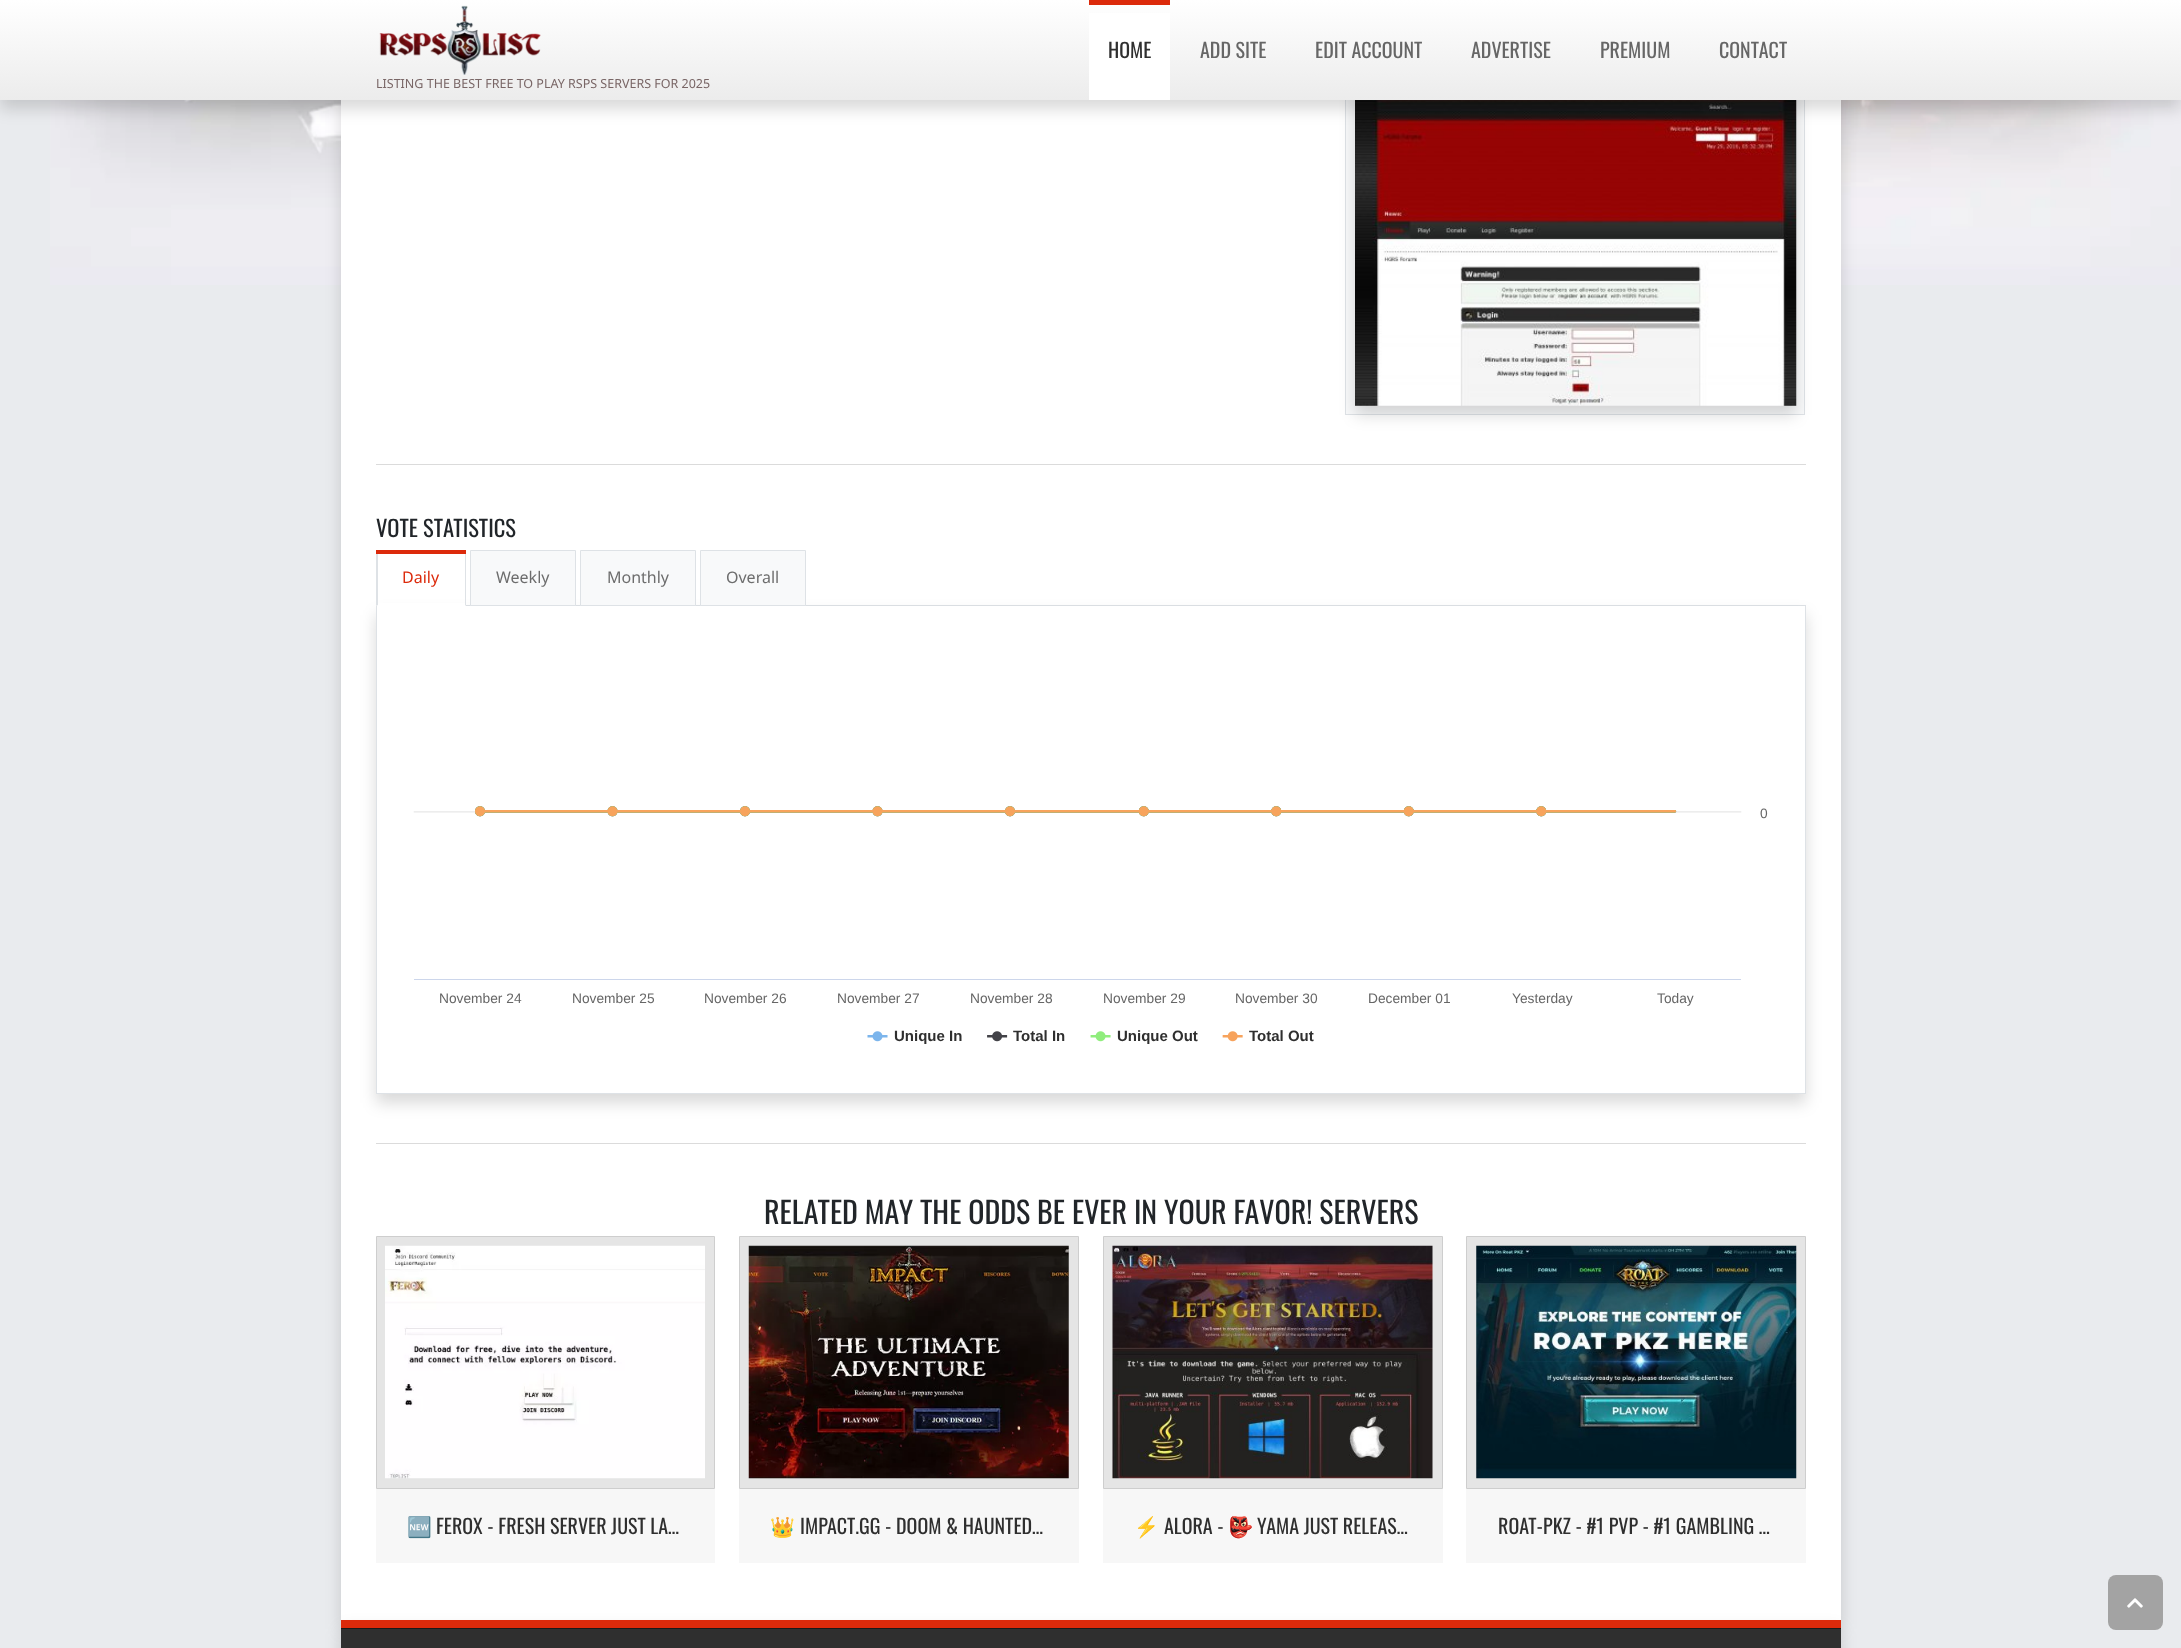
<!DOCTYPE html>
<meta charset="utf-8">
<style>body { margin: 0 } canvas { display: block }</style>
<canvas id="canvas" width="2181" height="1648"></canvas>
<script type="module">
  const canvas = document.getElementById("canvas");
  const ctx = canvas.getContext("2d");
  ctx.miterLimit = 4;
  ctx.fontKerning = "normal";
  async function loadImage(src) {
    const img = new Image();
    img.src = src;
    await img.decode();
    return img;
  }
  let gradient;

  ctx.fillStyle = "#e9ebee";
  ctx.fillRect(0, 0, 2181, 1648);
  ctx.drawImage(await loadImage("img1.png"), 50, 100, 2131, 185);
  ctx.fillStyle = "rgba(0, 0, 0, 0.15)";
  ctx.filter = "blur(8px)";
  ctx.beginPath();
  ctx.rect(341, -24, 1500, 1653);
  ctx.fill();
  ctx.filter = "none";
  ctx.fillStyle = "#ffffff";
  ctx.fillRect(341, 100, 1500, 1520);
  ctx.fillStyle = "#f8f9fa";
  ctx.fillRect(1346, 100, 458, 314);
  ctx.strokeStyle = "#dee2e6";
  ctx.strokeRect(1345.5, 75.5, 459, 339);
  ctx.fillStyle = "rgba(0, 0, 0, 0.15)";
  ctx.filter = "blur(8px)";
  ctx.beginPath();
  ctx.rect(1355, 94, 441, 321);
  ctx.fill();
  ctx.filter = "none";
  ctx.drawImage(await loadImage("img3.png"), 1355, 100, 442, 306);
  ctx.filter = "blur(8px)";
  ctx.beginPath();
  ctx.rect(0, 9, 2181, 100);
  ctx.fill();
  ctx.filter = "none";
  gradient = ctx.createLinearGradient(1091, 0, 1091, 100);
  gradient.addColorStop(0, "#ffffff");
  gradient.addColorStop(1, "#ececec");
  ctx.fillStyle = gradient;
  ctx.fillRect(0, 0, 2181, 100);
  ctx.fillStyle = "#ffffff";
  ctx.fillRect(1089, 13, 81, 87);
  ctx.fillStyle = "#dc2a0b";
  ctx.fillRect(1089, 0, 81, 5);
  ctx.font = "20px Oswald";
  ctx.fillStyle = "#2f2f2f";
  ctx.fillText("HOME", 1108, 58);
  ctx.fillStyle = "#666666";
  ctx.fillText("ADD SITE", 1200, 58);
  ctx.fillText("EDIT ACCOUNT", 1315, 58);
  ctx.fillText("ADVERTISE", 1471, 58);
  ctx.fillText("PREMIUM", 1600, 58);
  ctx.fillText("CONTACT", 1719, 58);
  ctx.drawImage(await loadImage("img2.png"), 379, 5, 162, 70);
  ctx.font = "12.5px Noto Sans";
  ctx.fillStyle = "#796666";
  ctx.fillText("LISTING THE BEST FREE TO PLAY RSPS SERVERS FOR 2025", 376, 88);
  ctx.fillStyle = "#dbdbdb";
  ctx.fillRect(376, 464, 1430, 1);
  ctx.font = "22.5px Oswald";
  ctx.fillStyle = "#212529";
  ctx.fillText("VOTE STATISTICS", 376, 537);
  ctx.fillStyle = "#dee2e6";
  ctx.fillRect(466, 605, 1340, 1);
  ctx.save();
  ctx.beginPath();
  ctx.moveTo(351, 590);
  ctx.lineTo(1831, 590);
  ctx.lineTo(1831, 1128);
  ctx.lineTo(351, 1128);
  ctx.closePath();
  ctx.moveTo(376, 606);
  ctx.lineTo(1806, 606);
  ctx.lineTo(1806, 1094);
  ctx.lineTo(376, 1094);
  ctx.closePath();
  ctx.clip("evenodd");
  ctx.fillStyle = "rgba(0, 0, 0, 0.15)";
  ctx.filter = "blur(8px)";
  ctx.beginPath();
  ctx.rect(376, 615, 1430, 488);
  ctx.fill();
  ctx.filter = "none";
  ctx.restore();
  ctx.fillStyle = "#ffffff";
  ctx.fillRect(377, 603, 89, 3);
  ctx.fillStyle = "#dee2e6";
  ctx.beginPath();
  ctx.moveTo(466, 550);
  ctx.lineTo(466, 606);
  ctx.lineTo(465, 605);
  ctx.lineTo(465, 551);
  ctx.closePath();
  ctx.fill();
  ctx.beginPath();
  ctx.moveTo(376, 606);
  ctx.lineTo(376, 550);
  ctx.lineTo(378, 551);
  ctx.lineTo(378, 605);
  ctx.closePath();
  ctx.fill();
  ctx.fillStyle = "#dc2a0b";
  ctx.fillRect(376, 550, 90, 4);
  ctx.font = "16px Noto Sans";
  ctx.fillText("Daily", 402, 583);
  ctx.fillStyle = "#f8f9fa";
  ctx.beginPath();
  ctx.rect(470.5, 550.5, 105, 55);
  ctx.fill();
  ctx.stroke();
  ctx.fillStyle = "#6d6d6d";
  ctx.fillText("Weekly", 496, 583);
  ctx.fillStyle = "#f8f9fa";
  ctx.beginPath();
  ctx.rect(580.5, 550.5, 115, 55);
  ctx.fill();
  ctx.stroke();
  ctx.fillStyle = "#6d6d6d";
  ctx.fillText("Monthly", 607, 583);
  ctx.fillStyle = "#f8f9fa";
  ctx.beginPath();
  ctx.rect(700.5, 550.5, 105, 55);
  ctx.fill();
  ctx.stroke();
  ctx.fillStyle = "#6d6d6d";
  ctx.fillText("Overall", 726, 583);
  ctx.fillStyle = "#dee2e6";
  ctx.fillRect(1805, 606, 1, 488);
  ctx.fillRect(376, 1093, 1430, 1);
  ctx.fillRect(376, 606, 1, 488);
  ctx.drawImage(await loadImage("img4.png"), 413, 806, 1329, 236);
  ctx.font = "13.75px Liberation Sans";
  ctx.fillStyle = "#666666";
  ctx.fillText("0", 1760, 818);
  ctx.fillText("November 24", 439, 1003);
  ctx.fillText("November 25", 572, 1003);
  ctx.fillText("November 26", 704, 1003);
  ctx.fillText("November 27", 837, 1003);
  ctx.fillText("November 28", 970, 1003);
  ctx.fillText("November 29", 1103, 1003);
  ctx.fillText("November 30", 1235, 1003);
  ctx.fillText("December 01", 1368, 1003);
  ctx.fillText("Yesterday", 1512, 1003);
  ctx.fillText("Today", 1657, 1003);
  ctx.font = "bold 15px Liberation Sans";
  ctx.fillStyle = "#2f2f2f";
  ctx.fillText("Unique In", 894, 1041);
  ctx.fillText("Total In", 1013, 1041);
  ctx.fillText("Unique Out", 1117, 1041);
  ctx.fillText("Total Out", 1249, 1041);
  ctx.fillStyle = "#dbdbdb";
  ctx.fillRect(376, 1143, 1430, 1);
  ctx.font = "30px Oswald";
  ctx.fillStyle = "#212529";
  ctx.fillText("RELATED MAY THE ODDS BE EVER IN YOUR FAVOR! SERVERS", 764, 1224);
  ctx.fillStyle = "#e5e5e5";
  ctx.beginPath();
  ctx.rect(376.5, 1236.5, 338, 252);
  ctx.fill();
  ctx.strokeStyle = "#cecece";
  ctx.stroke();
  ctx.drawImage(await loadImage("img5.png"), 385, 1245, 320, 234);
  ctx.fillStyle = "#f7f7f7";
  ctx.fillRect(376, 1489, 339, 74);
  ctx.font = "20px Noto Color Emoji";
  ctx.fillStyle = "#2f2f2f";
  ctx.fillText("🆕", 407, 1534);
  ctx.font = "20px Oswald";
  ctx.fillText("FEROX - FRESH SERVER JUST LA…", 436, 1534);
  ctx.fillStyle = "#e5e5e5";
  ctx.beginPath();
  ctx.rect(739.5, 1236.5, 339, 252);
  ctx.fill();
  ctx.stroke();
  ctx.drawImage(await loadImage("img6.png"), 748, 1245, 321, 234);
  ctx.fillStyle = "#f7f7f7";
  ctx.fillRect(739, 1489, 340, 74);
  ctx.font = "20px Noto Color Emoji";
  ctx.fillStyle = "#2f2f2f";
  ctx.fillText("👑", 770, 1534);
  ctx.font = "20px Oswald";
  ctx.fillText("IMPACT.GG - DOOM & HAUNTED…", 800, 1534);
  ctx.fillStyle = "#e5e5e5";
  ctx.beginPath();
  ctx.rect(1103.5, 1236.5, 339, 252);
  ctx.fill();
  ctx.stroke();
  ctx.drawImage(await loadImage("img7.png"), 1112, 1245, 321, 234);
  ctx.fillStyle = "#f7f7f7";
  ctx.fillRect(1103, 1489, 340, 74);
  ctx.font = "20px Noto Color Emoji";
  ctx.fillStyle = "#2f2f2f";
  ctx.fillText("⚡", 1134, 1534);
  ctx.font = "20px Oswald";
  ctx.fillText("ALORA -", 1164, 1534);
  ctx.font = "20px Noto Color Emoji";
  ctx.fillText("👺", 1228, 1534);
  ctx.font = "20px Oswald";
  ctx.fillText("YAMA JUST RELEAS…", 1257, 1534);
  ctx.fillStyle = "#e5e5e5";
  ctx.beginPath();
  ctx.rect(1466.5, 1236.5, 339, 252);
  ctx.fill();
  ctx.stroke();
  ctx.drawImage(await loadImage("img8.png"), 1476, 1245, 321, 234);
  ctx.fillStyle = "#f7f7f7";
  ctx.fillRect(1466, 1489, 340, 74);
  ctx.fillStyle = "#2f2f2f";
  ctx.fillText("ROAT-PKZ - #1 PVP - #1 GAMBLING …", 1498, 1534);
  ctx.fillStyle = "rgba(0, 0, 0, 0.15)";
  ctx.filter = "blur(8px)";
  ctx.beginPath();
  ctx.roundRect(341, 1629, 1500, 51, 8);
  ctx.fill();
  ctx.filter = "none";
  ctx.fillStyle = "#2f2f2f";
  ctx.fillRect(341, 1629, 1500, 19);
  ctx.fillStyle = "#dc2a0b";
  ctx.fillRect(341, 1620, 1500, 8);
  ctx.fillStyle = "#191919";
  ctx.fillRect(341, 1628, 1500, 1);
  ctx.fillStyle = "#a3a3a3";
  ctx.beginPath();
  ctx.roundRect(2108, 1575, 55, 55, 8);
  ctx.fill();
  ctx.drawImage(await loadImage("img9.png"), 2127, 1598, 16, 10);
</script>
